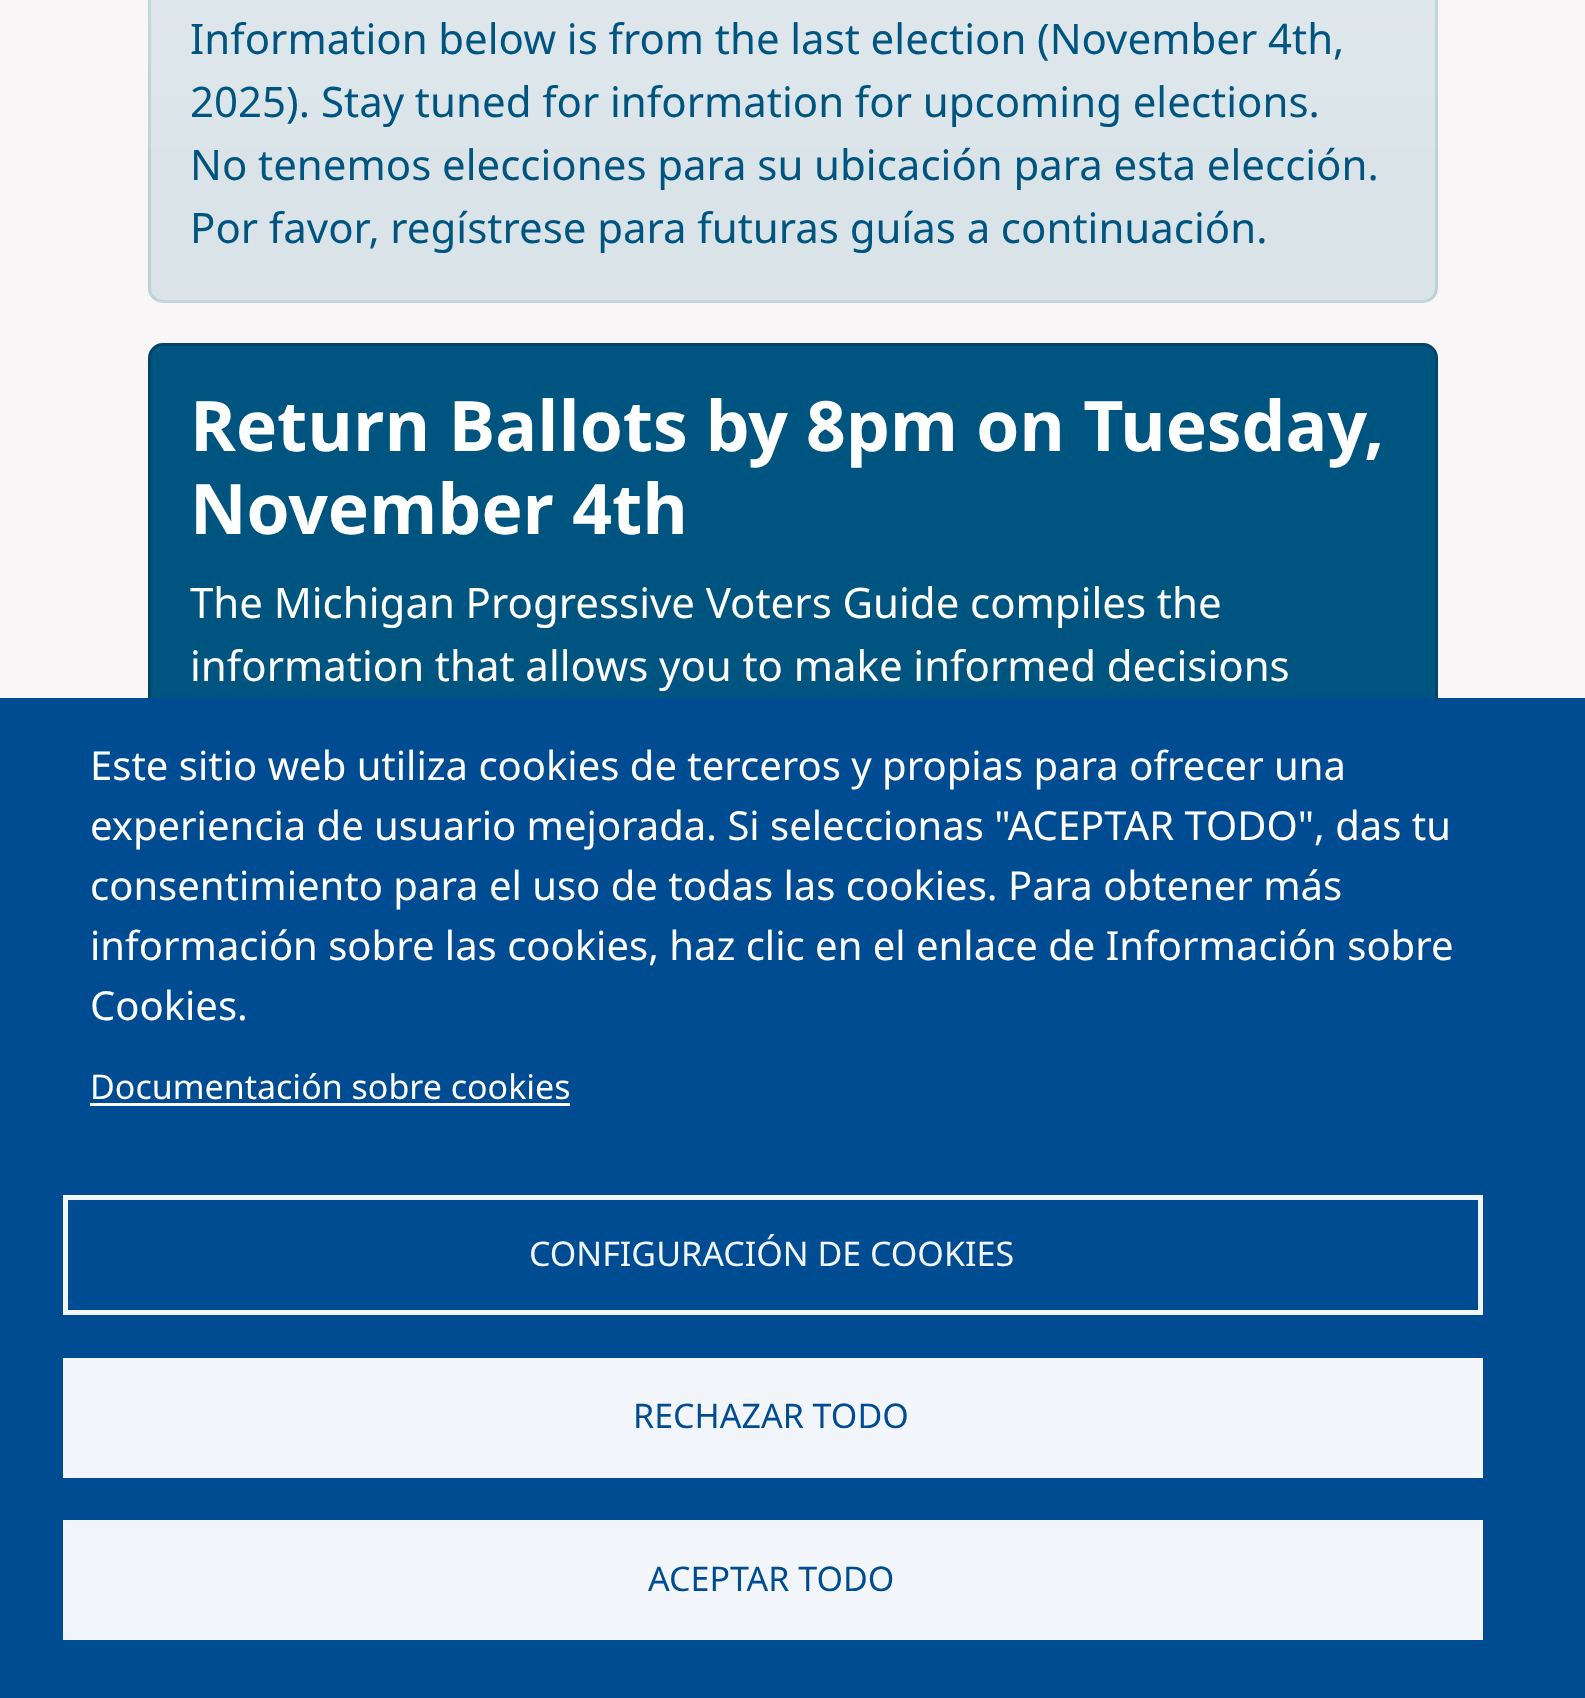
<!DOCTYPE html>
<meta charset="utf-8">
<style>body { margin: 0 } canvas { display: block }</style>
<canvas id="canvas" width="1585" height="1698"></canvas>
<script type="module">
  const canvas = document.getElementById("canvas");
  const ctx = canvas.getContext("2d");
  ctx.miterLimit = 4;
  ctx.fontKerning = "normal";
  let gradient;

  ctx.fillStyle = "#f8f6f6";
  ctx.fillRect(0, 0, 1585, 1698);
  ctx.fillStyle = "#d9e3e8";
  ctx.beginPath();
  ctx.roundRect(148, -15, 1290, 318, 15);
  ctx.fill();
  gradient = ctx.createLinearGradient(793, -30, 793, 300);
  gradient.addColorStop(0, "rgba(255, 255, 255, 0.15)");
  gradient.addColorStop(1, "rgba(255, 255, 255, 0)");
  ctx.fillStyle = gradient;
  ctx.fillRect(148, 0, 1290, 149);
  ctx.save();
  ctx.beginPath();
  ctx.roundRect(148, -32, 1290, 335, 15);
  ctx.clip();
  gradient = ctx.createLinearGradient(793, 300, 793, 630);
  gradient.addColorStop(0, "rgba(255, 255, 255, 0.15)");
  gradient.addColorStop(1, "rgba(255, 255, 255, 0)");
  ctx.fillStyle = gradient;
  ctx.fillRect(148, 300, 1290, 3);
  ctx.restore();
  ctx.beginPath();
  ctx.roundRect(149.5, -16.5, 1287, 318, 13.5);
  ctx.strokeStyle = "rgba(0, 85, 128, 0.12)";
  ctx.lineWidth = 3;
  ctx.stroke();
  ctx.wordSpacing = "-0.25px";
  ctx.font = "42px Noto Sans";
  ctx.fillStyle = "#005580";
  ctx.fillText("Information below is from the last election (November 4th,", 190, 54);
  ctx.wordSpacing = "0px";
  ctx.fillText("2025).", 190, 117);
  ctx.wordSpacing = "-0.25px";
  ctx.fillText("Stay tuned for information for upcoming elections.", 321, 117);
  ctx.fillText("No tenemos elecciones para su ubicación para esta elección.", 190, 180);
  ctx.fillText("Por favor, regístrese para futuras guías a continuación.", 190, 243);
  ctx.beginPath();
  ctx.roundRect(148, 343, 1290, 752, 15);
  ctx.fill();
  ctx.beginPath();
  ctx.roundRect(149.5, 344.5, 1287, 749, 13.5);
  ctx.strokeStyle = "rgba(0, 0, 0, 0.18)";
  ctx.stroke();
  ctx.wordSpacing = "0px";
  ctx.font = "bold 69.6px Noto Sans";
  ctx.fillStyle = "#ffffff";
  ctx.fillText("Return Ballots by 8pm on Tuesday,", 190, 451);
  ctx.fillText("November 4th", 190, 534);
  ctx.wordSpacing = "-0.25px";
  ctx.font = "42px Noto Sans";
  ctx.fillText("The Michigan Progressive Voters Guide compiles the", 190, 618);
  ctx.fillText("information that allows you to make informed decisions", 190, 681);
  ctx.fillStyle = "#004c93";
  ctx.fillRect(0, 698, 1585, 1000);
  ctx.wordSpacing = "0px";
  ctx.font = "40px Noto Sans";
  ctx.fillStyle = "#ffffff";
  ctx.fillText("Este sitio web utiliza cookies de terceros y propias para ofrecer una", 90, 780);
  ctx.fillText("experiencia de usuario mejorada. Si seleccionas \"ACEPTAR TODO\", das tu", 90, 840);
  ctx.fillText("consentimiento para el uso de todas las cookies. Para obtener más", 90, 900);
  ctx.fillText("información sobre las cookies, haz clic en el enlace de Información sobre", 90, 960);
  ctx.fillText("Cookies.", 90, 1020);
  ctx.font = "34px Noto Sans";
  ctx.fillText("Documentación sobre cookies", 90, 1099);
  ctx.fillRect(90, 1103, 480, 3);
  ctx.strokeStyle = "#f2f6fa";
  ctx.lineWidth = 5;
  ctx.strokeRect(65.5, 1197.5, 1415, 115);
  ctx.fillStyle = "#f2f6fa";
  ctx.fillText("CONFIGURACIÓN DE COOKIES", 529, 1266);
  ctx.fillRect(63, 1358, 1420, 120);
  ctx.fillStyle = "#004c93";
  ctx.fillText("RECHAZAR TODO", 633, 1428);
  ctx.fillStyle = "#f2f6fa";
  ctx.fillRect(63, 1520, 1420, 120);
  ctx.fillStyle = "#004c93";
  ctx.fillText("ACEPTAR TODO", 648, 1591);
</script>
